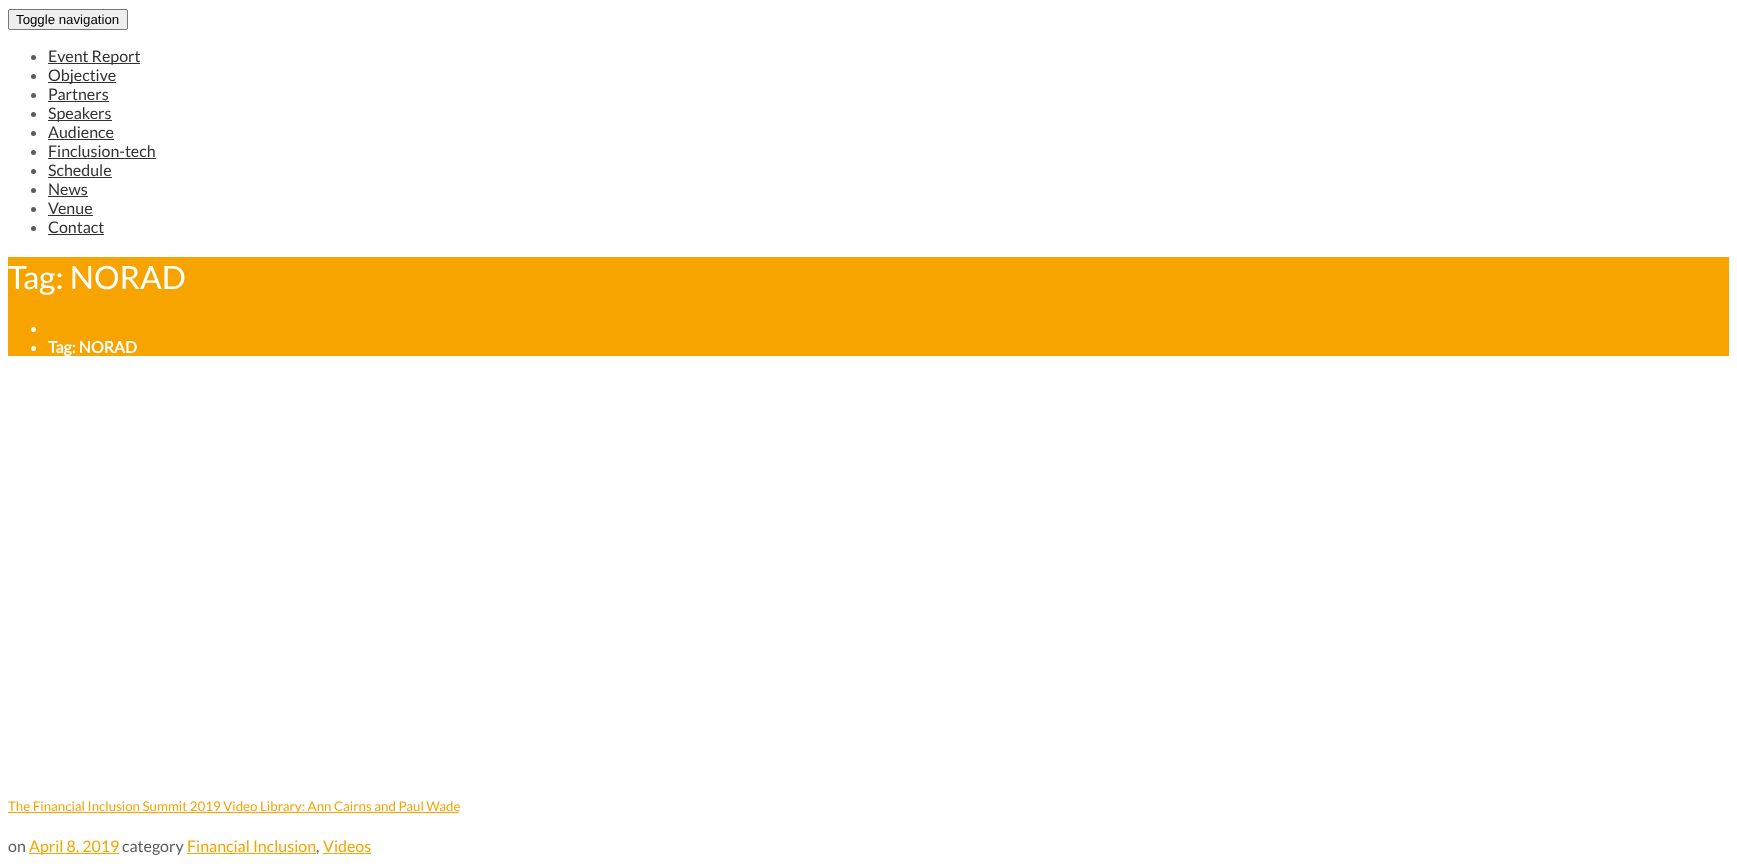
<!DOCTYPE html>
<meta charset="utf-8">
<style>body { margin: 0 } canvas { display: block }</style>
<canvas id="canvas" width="1737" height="868"></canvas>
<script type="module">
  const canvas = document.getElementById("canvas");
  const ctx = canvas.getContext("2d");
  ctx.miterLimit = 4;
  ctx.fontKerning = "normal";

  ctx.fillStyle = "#ffffff";
  ctx.fillRect(0, 0, 1737, 868);
  ctx.fillStyle = "#efefef";
  ctx.beginPath();
  ctx.roundRect(8.5, 9.5, 119, 20, 1.5);
  ctx.fill();
  ctx.strokeStyle = "#767676";
  ctx.stroke();
  ctx.font = "13.25px Liberation Sans";
  ctx.fillStyle = "#000000";
  ctx.fillText("Toggle navigation", 16, 24);
  ctx.fillStyle = "#5c5c5c";
  ctx.beginPath();
  ctx.arc(33.5, 57.5, 2.5, 0, Math.PI * 2);
  ctx.fill();
  ctx.fillStyle = "#333333";
  ctx.fillRect(48, 63, 92, 1);
  ctx.font = "16px Lato";
  ctx.fillText("Event Report", 48, 62);
  ctx.fillStyle = "#5c5c5c";
  ctx.beginPath();
  ctx.arc(33.5, 76.5, 2.5, 0, Math.PI * 2);
  ctx.fill();
  ctx.fillStyle = "#333333";
  ctx.fillRect(48, 82, 68, 1);
  ctx.fillText("Objective", 48, 81);
  ctx.fillStyle = "#5c5c5c";
  ctx.beginPath();
  ctx.arc(33.5, 95.5, 2.5, 0, Math.PI * 2);
  ctx.fill();
  ctx.fillStyle = "#333333";
  ctx.fillText("Partners", 48, 100);
  ctx.fillRect(48, 101, 61, 1);
  ctx.fillStyle = "#5c5c5c";
  ctx.beginPath();
  ctx.arc(33.5, 114.5, 2.5, 0, Math.PI * 2);
  ctx.fill();
  ctx.fillStyle = "#333333";
  ctx.fillRect(48, 120, 64, 1);
  ctx.fillText("Speakers", 48, 119);
  ctx.fillStyle = "#5c5c5c";
  ctx.beginPath();
  ctx.arc(33.5, 133.5, 2.5, 0, Math.PI * 2);
  ctx.fill();
  ctx.fillStyle = "#333333";
  ctx.fillText("Audience", 48, 138);
  ctx.fillRect(48, 139, 66, 1);
  ctx.fillStyle = "#5c5c5c";
  ctx.beginPath();
  ctx.arc(33.5, 152.5, 2.5, 0, Math.PI * 2);
  ctx.fill();
  ctx.fillStyle = "#333333";
  ctx.fillText("Finclusion-tech", 48, 157);
  ctx.fillRect(48, 158, 108, 1);
  ctx.fillStyle = "#5c5c5c";
  ctx.beginPath();
  ctx.arc(33.5, 171.5, 2.5, 0, Math.PI * 2);
  ctx.fill();
  ctx.fillStyle = "#333333";
  ctx.fillText("Schedule", 48, 176);
  ctx.fillRect(48, 177, 64, 1);
  ctx.fillStyle = "#5c5c5c";
  ctx.beginPath();
  ctx.arc(33.5, 190.5, 2.5, 0, Math.PI * 2);
  ctx.fill();
  ctx.fillStyle = "#333333";
  ctx.fillText("News", 48, 195);
  ctx.fillRect(48, 196, 40, 1);
  ctx.fillStyle = "#5c5c5c";
  ctx.beginPath();
  ctx.arc(33.5, 209.5, 2.5, 0, Math.PI * 2);
  ctx.fill();
  ctx.fillStyle = "#333333";
  ctx.fillText("Venue", 48, 214);
  ctx.fillRect(48, 215, 45, 1);
  ctx.fillStyle = "#5c5c5c";
  ctx.beginPath();
  ctx.arc(33.5, 228.5, 2.5, 0, Math.PI * 2);
  ctx.fill();
  ctx.fillStyle = "#333333";
  ctx.fillText("Contact", 48, 233);
  ctx.fillRect(48, 234, 56, 1);
  ctx.fillStyle = "#f7a300";
  ctx.fillRect(8, 257, 1721, 99);
  ctx.font = "32px Lato";
  ctx.fillStyle = "#ffffff";
  ctx.fillText("Tag: NORAD", 8, 289);
  ctx.beginPath();
  ctx.arc(33.5, 329.5, 2.5, 0, Math.PI * 2);
  ctx.fill();
  ctx.beginPath();
  ctx.arc(33.5, 348.5, 2.5, 0, Math.PI * 2);
  ctx.fill();
  ctx.font = "bold 16px Lato";
  ctx.fillText("Tag: NORAD", 48, 353);
  ctx.fillStyle = "#f7a300";
  ctx.fillRect(8, 812, 451, 1);
  ctx.font = "13.3px Lato";
  ctx.fillText("The Financial Inclusion Summit 2019 Video Library: Ann Cairns and Paul Wade", 8, 811);
  ctx.font = "16px Lato";
  ctx.fillStyle = "#5c5c5c";
  ctx.fillText("on", 8, 852);
  ctx.fillStyle = "#f7a300";
  ctx.fillRect(29, 853, 90, 1);
  ctx.fillText("April 8, 2019", 29, 852);
  ctx.fillStyle = "#5c5c5c";
  ctx.fillText("category", 122, 852);
  ctx.fillStyle = "#f7a300";
  ctx.fillText("Financial Inclusion", 187, 852);
  ctx.fillRect(187, 853, 129, 1);
  ctx.fillStyle = "#5c5c5c";
  ctx.fillText(",", 316, 852);
  ctx.fillStyle = "#f7a300";
  ctx.fillText("Videos", 323, 852);
  ctx.fillRect(323, 853, 48, 1);
</script>
